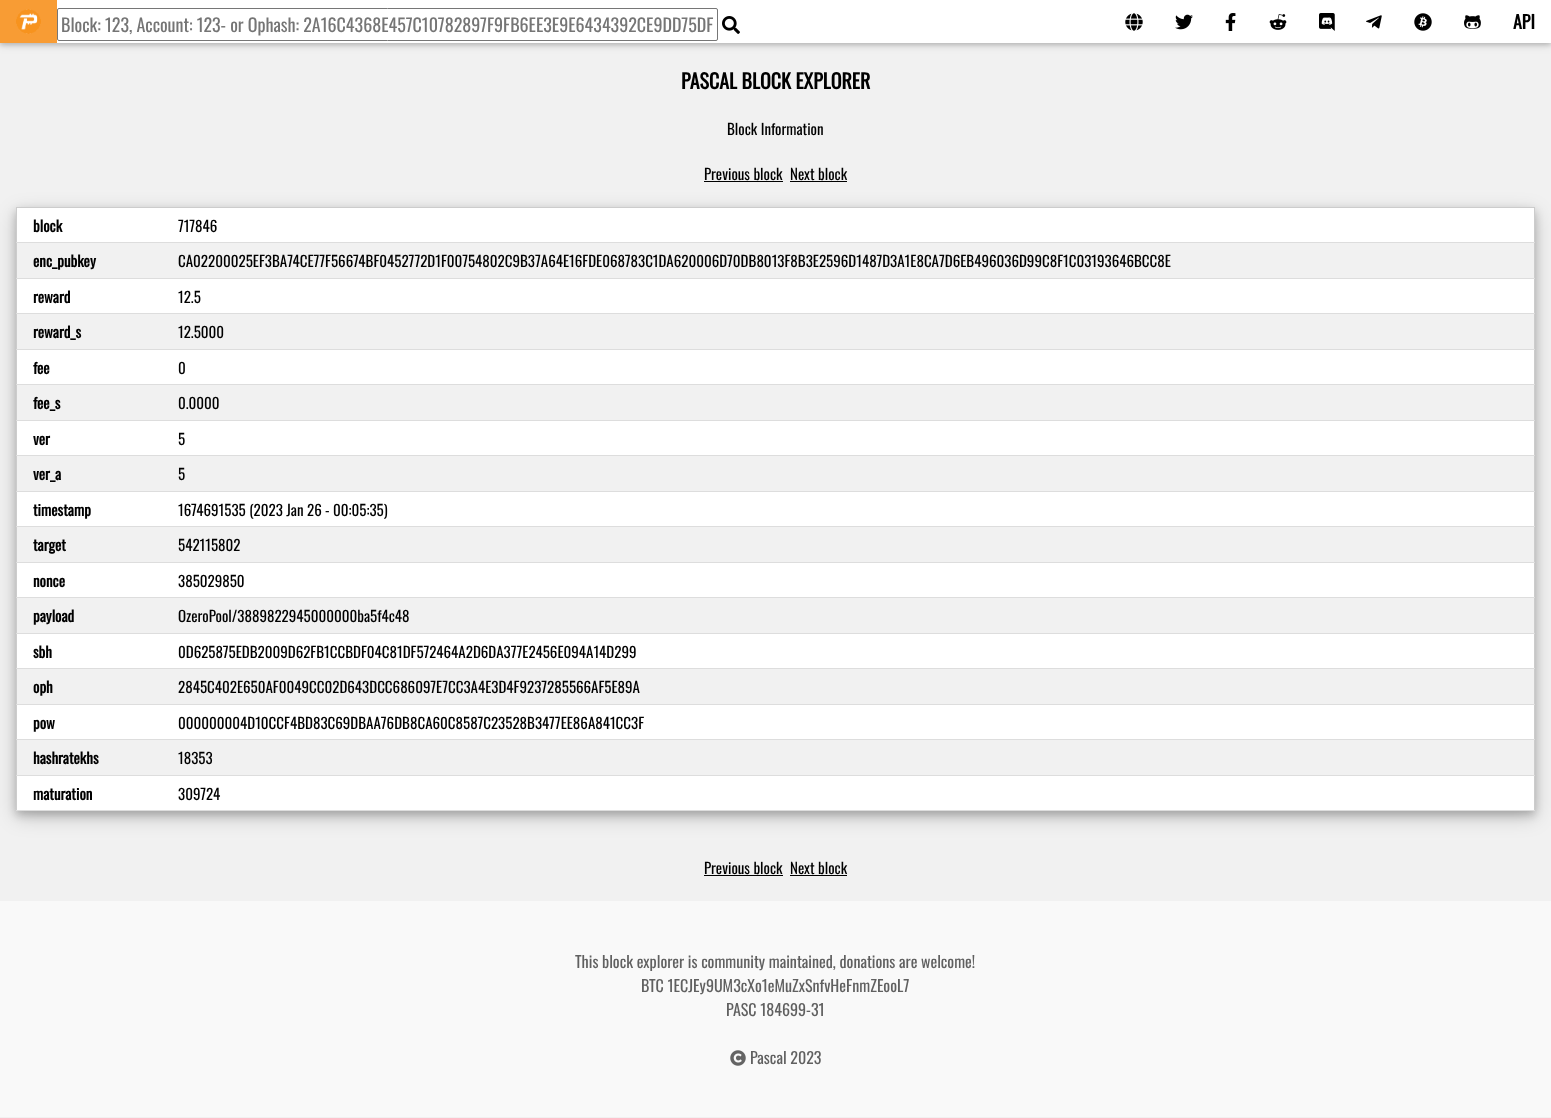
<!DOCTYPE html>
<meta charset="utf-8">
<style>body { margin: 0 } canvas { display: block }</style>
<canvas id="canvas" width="1551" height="1118"></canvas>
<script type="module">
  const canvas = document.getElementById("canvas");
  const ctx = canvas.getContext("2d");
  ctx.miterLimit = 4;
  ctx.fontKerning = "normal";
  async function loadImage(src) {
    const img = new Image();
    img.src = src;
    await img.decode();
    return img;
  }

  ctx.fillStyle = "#f1f1f1";
  ctx.fillRect(0, 0, 1551, 1118);
  ctx.fillStyle = "rgba(0, 0, 0, 0.12)";
  ctx.filter = "blur(5px)";
  ctx.beginPath();
  ctx.rect(0, 2, 1551, 43);
  ctx.fill();
  ctx.filter = "none";
  ctx.fillStyle = "rgba(0, 0, 0, 0.16)";
  ctx.filter = "blur(2px)";
  ctx.beginPath();
  ctx.rect(0, 2, 1551, 43);
  ctx.fill();
  ctx.filter = "none";
  ctx.fillStyle = "#ffffff";
  ctx.fillRect(57, 0, 1494, 43);
  ctx.fillStyle = "#f89c34";
  ctx.fillRect(0, 0, 57, 43);
  ctx.drawImage(await loadImage("img1.png"), 16, 9, 25, 25);
  ctx.beginPath();
  ctx.roundRect(57.5, 8.5, 660, 32, 1.5);
  ctx.strokeStyle = "#767676";
  ctx.stroke();
  ctx.font = "18px Oswald";
  ctx.fillStyle = "#757575";
  ctx.fillText("Block: 123, Account: 123- or Ophash: 2A16C4368E457C10782897F9FB6EE3E9E6434392CE9DD75DF", 61, 32);
  ctx.drawImage(await loadImage("img2.png"), 722, 16, 18, 18);
  ctx.drawImage(await loadImage("img3.png"), 1125, 13, 18, 18);
  ctx.drawImage(await loadImage("img4.png"), 1175, 14, 18, 16);
  ctx.drawImage(await loadImage("img5.png"), 1225, 13, 11, 18);
  ctx.drawImage(await loadImage("img6.png"), 1269, 14, 18, 16);
  ctx.drawImage(await loadImage("img7.png"), 1319, 13, 16, 18);
  ctx.drawImage(await loadImage("img8.png"), 1366, 15, 16, 14);
  ctx.drawImage(await loadImage("img9.png"), 1414, 13, 18, 18);
  ctx.drawImage(await loadImage("img10.png"), 1464, 15, 17, 14);
  ctx.font = "bold 18px Oswald";
  ctx.fillStyle = "#000000";
  ctx.fillText("API", 1513, 29);
  ctx.font = "bold 20px Oswald";
  ctx.fillText("PASCAL BLOCK EXPLORER", 681, 89);
  ctx.font = "15px Oswald";
  ctx.fillText("Block Information", 727, 135);
  ctx.fillText("Previous block", 704, 180);
  ctx.fillRect(704, 181, 79, 1);
  ctx.fillText("Next block", 790, 180);
  ctx.fillRect(790, 181, 57, 1);
  ctx.save();
  ctx.beginPath();
  ctx.moveTo(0, 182);
  ctx.lineTo(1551, 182);
  ctx.lineTo(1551, 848);
  ctx.lineTo(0, 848);
  ctx.closePath();
  ctx.moveTo(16, 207);
  ctx.lineTo(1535, 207);
  ctx.lineTo(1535, 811);
  ctx.lineTo(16, 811);
  ctx.closePath();
  ctx.clip("evenodd");
  ctx.fillStyle = "rgba(0, 0, 0, 0.19)";
  ctx.filter = "blur(10px)";
  ctx.beginPath();
  ctx.rect(16, 213, 1519, 604);
  ctx.fill();
  ctx.filter = "none";
  ctx.restore();
  ctx.save();
  ctx.beginPath();
  ctx.moveTo(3, 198);
  ctx.lineTo(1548, 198);
  ctx.lineTo(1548, 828);
  ctx.lineTo(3, 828);
  ctx.closePath();
  ctx.moveTo(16, 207);
  ctx.lineTo(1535, 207);
  ctx.lineTo(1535, 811);
  ctx.lineTo(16, 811);
  ctx.closePath();
  ctx.clip("evenodd");
  ctx.fillStyle = "rgba(0, 0, 0, 0.2)";
  ctx.filter = "blur(4px)";
  ctx.beginPath();
  ctx.rect(16, 211, 1519, 604);
  ctx.fill();
  ctx.filter = "none";
  ctx.restore();
  ctx.fillStyle = "#cccccc";
  ctx.fillRect(16, 207, 1519, 1);
  ctx.fillRect(1534, 207, 1, 604);
  ctx.fillRect(16, 207, 1, 604);
  ctx.fillStyle = "#ffffff";
  ctx.fillRect(17, 208, 1517, 34);
  ctx.fillStyle = "#dddddd";
  ctx.fillRect(16, 242, 1519, 1);
  ctx.font = "bold 15px Oswald";
  ctx.fillStyle = "#000000";
  ctx.fillText("block", 33, 232);
  ctx.font = "15px Oswald";
  ctx.fillText("717846", 178, 232);
  ctx.fillStyle = "#dddddd";
  ctx.fillRect(16, 278, 1519, 1);
  ctx.font = "bold 15px Oswald";
  ctx.fillStyle = "#000000";
  ctx.fillText("enc_pubkey", 33, 267);
  ctx.font = "15px Oswald";
  ctx.fillText("CA02200025EF3BA74CE77F56674BF0452772D1F00754802C9B37A64E16FDE068783C1DA620006D70DB8013F8B3E2596D1487D3A1E8CA7D6EB496036D99C8F1C03193646BCC8E", 178, 267);
  ctx.fillStyle = "#ffffff";
  ctx.fillRect(17, 279, 1517, 34);
  ctx.fillStyle = "#dddddd";
  ctx.fillRect(16, 313, 1519, 1);
  ctx.font = "bold 15px Oswald";
  ctx.fillStyle = "#000000";
  ctx.fillText("reward", 33, 303);
  ctx.font = "15px Oswald";
  ctx.fillText("12.5", 178, 303);
  ctx.fillStyle = "#dddddd";
  ctx.fillRect(16, 349, 1519, 1);
  ctx.font = "bold 15px Oswald";
  ctx.fillStyle = "#000000";
  ctx.fillText("reward_s", 33, 338);
  ctx.font = "15px Oswald";
  ctx.fillText("12.5000", 178, 338);
  ctx.fillStyle = "#ffffff";
  ctx.fillRect(17, 350, 1517, 34);
  ctx.fillStyle = "#dddddd";
  ctx.fillRect(16, 384, 1519, 1);
  ctx.font = "bold 15px Oswald";
  ctx.fillStyle = "#000000";
  ctx.fillText("fee", 33, 374);
  ctx.font = "15px Oswald";
  ctx.fillText("0", 178, 374);
  ctx.fillStyle = "#dddddd";
  ctx.fillRect(16, 420, 1519, 1);
  ctx.font = "bold 15px Oswald";
  ctx.fillStyle = "#000000";
  ctx.fillText("fee_s", 33, 409);
  ctx.font = "15px Oswald";
  ctx.fillText("0.0000", 178, 409);
  ctx.fillStyle = "#ffffff";
  ctx.fillRect(17, 421, 1517, 34);
  ctx.fillStyle = "#dddddd";
  ctx.fillRect(16, 455, 1519, 1);
  ctx.font = "bold 15px Oswald";
  ctx.fillStyle = "#000000";
  ctx.fillText("ver", 33, 445);
  ctx.font = "15px Oswald";
  ctx.fillText("5", 178, 445);
  ctx.fillStyle = "#dddddd";
  ctx.fillRect(16, 491, 1519, 1);
  ctx.font = "bold 15px Oswald";
  ctx.fillStyle = "#000000";
  ctx.fillText("ver_a", 33, 480);
  ctx.font = "15px Oswald";
  ctx.fillText("5", 178, 480);
  ctx.fillStyle = "#ffffff";
  ctx.fillRect(17, 492, 1517, 34);
  ctx.fillStyle = "#dddddd";
  ctx.fillRect(16, 526, 1519, 1);
  ctx.font = "bold 15px Oswald";
  ctx.fillStyle = "#000000";
  ctx.fillText("timestamp", 33, 516);
  ctx.font = "15px Oswald";
  ctx.fillText("1674691535 (2023 Jan 26 - 00:05:35)", 178, 516);
  ctx.fillStyle = "#dddddd";
  ctx.fillRect(16, 562, 1519, 1);
  ctx.font = "bold 15px Oswald";
  ctx.fillStyle = "#000000";
  ctx.fillText("target", 33, 551);
  ctx.font = "15px Oswald";
  ctx.fillText("542115802", 178, 551);
  ctx.fillStyle = "#ffffff";
  ctx.fillRect(17, 563, 1517, 34);
  ctx.fillStyle = "#dddddd";
  ctx.fillRect(16, 597, 1519, 1);
  ctx.font = "bold 15px Oswald";
  ctx.fillStyle = "#000000";
  ctx.fillText("nonce", 33, 587);
  ctx.font = "15px Oswald";
  ctx.fillText("385029850", 178, 587);
  ctx.fillStyle = "#dddddd";
  ctx.fillRect(16, 633, 1519, 1);
  ctx.font = "bold 15px Oswald";
  ctx.fillStyle = "#000000";
  ctx.fillText("payload", 33, 622);
  ctx.font = "15px Oswald";
  ctx.fillText("OzeroPool/3889822945000000ba5f4c48", 178, 622);
  ctx.fillStyle = "#ffffff";
  ctx.fillRect(17, 634, 1517, 34);
  ctx.fillStyle = "#dddddd";
  ctx.fillRect(16, 668, 1519, 1);
  ctx.font = "bold 15px Oswald";
  ctx.fillStyle = "#000000";
  ctx.fillText("sbh", 33, 658);
  ctx.font = "15px Oswald";
  ctx.fillText("0D625875EDB2009D62FB1CCBDF04C81DF572464A2D6DA377E2456E094A14D299", 178, 658);
  ctx.fillStyle = "#dddddd";
  ctx.fillRect(16, 704, 1519, 1);
  ctx.font = "bold 15px Oswald";
  ctx.fillStyle = "#000000";
  ctx.fillText("oph", 33, 693);
  ctx.font = "15px Oswald";
  ctx.fillText("2845C402E650AF0049CC02D643DCC686097E7CC3A4E3D4F9237285566AF5E89A", 178, 693);
  ctx.fillStyle = "#ffffff";
  ctx.fillRect(17, 705, 1517, 34);
  ctx.fillStyle = "#dddddd";
  ctx.fillRect(16, 739, 1519, 1);
  ctx.font = "bold 15px Oswald";
  ctx.fillStyle = "#000000";
  ctx.fillText("pow", 33, 729);
  ctx.font = "15px Oswald";
  ctx.fillText("000000004D10CCF4BD83C69DBAA76DB8CA60C8587C23528B3477EE86A841CC3F", 178, 729);
  ctx.fillStyle = "#dddddd";
  ctx.fillRect(16, 775, 1519, 1);
  ctx.font = "bold 15px Oswald";
  ctx.fillStyle = "#000000";
  ctx.fillText("hashratekhs", 33, 764);
  ctx.font = "15px Oswald";
  ctx.fillText("18353", 178, 764);
  ctx.fillStyle = "#ffffff";
  ctx.fillRect(17, 776, 1517, 34);
  ctx.fillStyle = "#dddddd";
  ctx.fillRect(16, 810, 1519, 1);
  ctx.font = "bold 15px Oswald";
  ctx.fillStyle = "#000000";
  ctx.fillText("maturation", 33, 800);
  ctx.font = "15px Oswald";
  ctx.fillText("309724", 178, 800);
  ctx.fillText("Previous block", 704, 874);
  ctx.fillRect(704, 875, 79, 1);
  ctx.fillText("Next block", 790, 874);
  ctx.fillRect(790, 875, 57, 1);
  ctx.fillStyle = "#f9f9f9";
  ctx.fillRect(0, 901, 1551, 216);
  ctx.font = "16px Oswald";
  ctx.fillStyle = "#606060";
  ctx.fillText("This block explorer is community maintained, donations are welcome!", 575, 968);
  ctx.fillText("BTC 1ECJEy9UM3cXo1eMuZxSnfvHeFnmZEooL7", 641, 992);
  ctx.fillText("PASC 184699-31", 726, 1016);
  ctx.drawImage(await loadImage("img11.png"), 730, 1050, 16, 16);
  ctx.fillText("Pascal 2023", 750, 1064);
</script>
